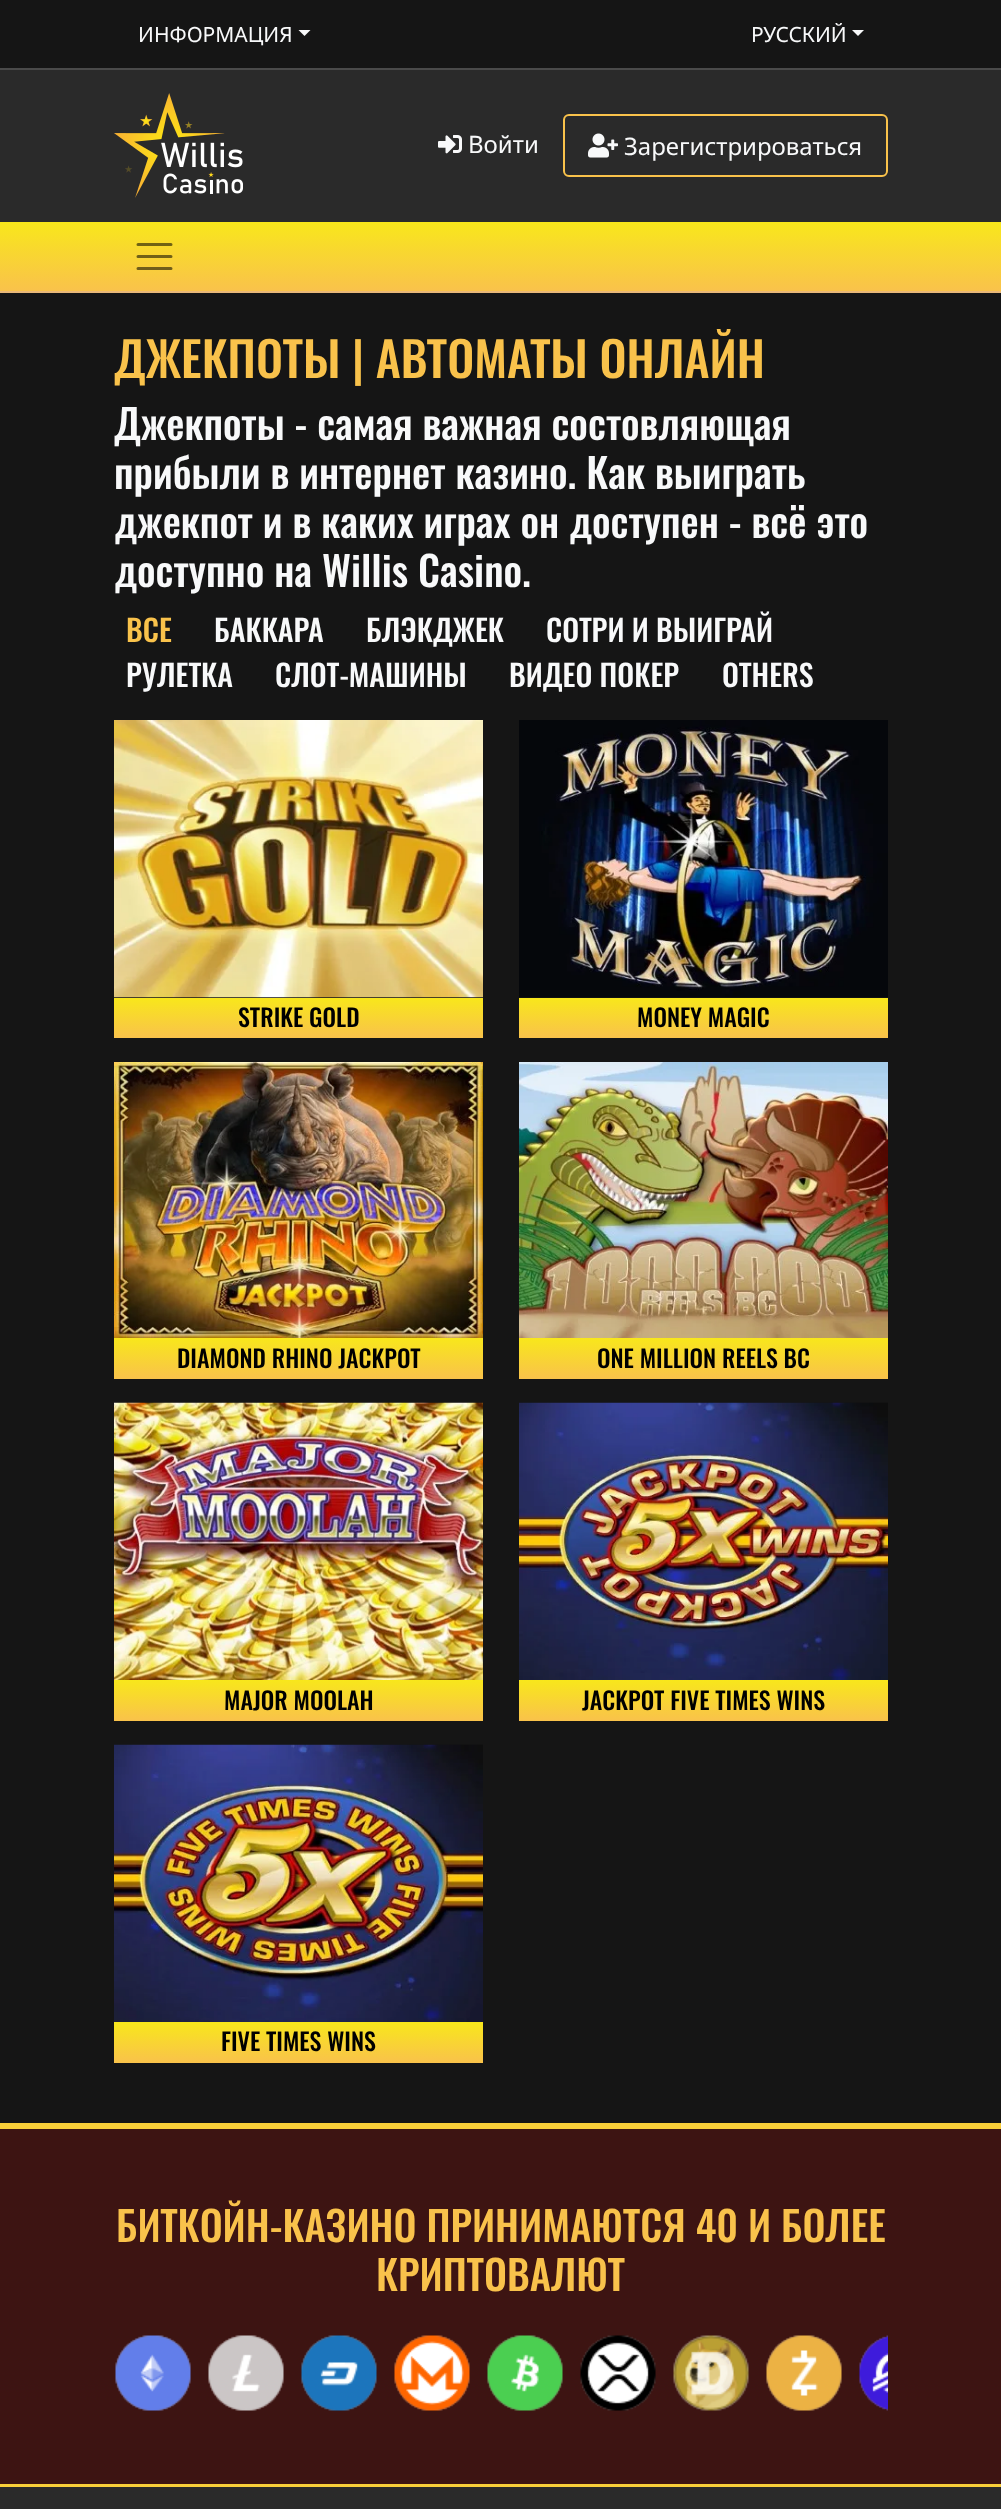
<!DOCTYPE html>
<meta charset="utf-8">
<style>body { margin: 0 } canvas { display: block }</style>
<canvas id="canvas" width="1001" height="2509"></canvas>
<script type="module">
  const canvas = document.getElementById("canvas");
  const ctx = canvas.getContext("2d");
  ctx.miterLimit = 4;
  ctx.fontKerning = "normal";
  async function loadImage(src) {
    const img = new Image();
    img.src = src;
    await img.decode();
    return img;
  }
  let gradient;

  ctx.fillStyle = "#2a2a2a";
  ctx.fillRect(0, 0, 1001, 2509);
  ctx.fillStyle = "#151515";
  ctx.fillRect(0, 0, 1001, 68);
  ctx.fillStyle = "#4a4a4a";
  ctx.fillRect(0, 68, 1001, 2);
  ctx.font = "21px Noto Sans";
  ctx.fillStyle = "#f8f9fa";
  ctx.fillText("ИНФОРМАЦИЯ", 138, 42);
  ctx.beginPath();
  ctx.moveTo(298.5, 30);
  ctx.lineTo(310.5, 30);
  ctx.lineTo(304.5, 36);
  ctx.closePath();
  ctx.fill();
  ctx.fillText("РУССКИЙ", 751, 42);
  ctx.beginPath();
  ctx.moveTo(852, 30);
  ctx.lineTo(864, 30);
  ctx.lineTo(858, 36);
  ctx.closePath();
  ctx.fill();
  ctx.drawImage(await loadImage("img1.png"), 114, 93, 129, 105);
  ctx.drawImage(await loadImage("img2.png"), 438, 135, 24, 19);
  ctx.font = "24px Noto Sans";
  ctx.fillText("Войти", 468, 153);
  ctx.beginPath();
  ctx.roundRect(564, 115, 323, 61, 5);
  ctx.strokeStyle = "#f9c24b";
  ctx.lineWidth = 2;
  ctx.stroke();
  ctx.drawImage(await loadImage("img3.png"), 588, 133, 30, 25);
  ctx.fillText("Зарегистрироваться", 624, 155);
  gradient = ctx.createLinearGradient(501, 291, 501, 222);
  gradient.addColorStop(0, "#f9c24b");
  gradient.addColorStop(1, "#f8e71b");
  ctx.fillStyle = gradient;
  ctx.fillRect(0, 222, 1001, 69);
  ctx.fillStyle = "#eab878";
  ctx.fillRect(0, 291, 1001, 2);
  ctx.beginPath();
  ctx.moveTo(138, 244.5);
  ctx.lineTo(171, 244.5);
  ctx.moveTo(138, 256.5);
  ctx.lineTo(171, 256.5);
  ctx.moveTo(138, 268.5);
  ctx.lineTo(171, 268.5);
  ctx.strokeStyle = "rgba(0, 0, 0, 0.55)";
  ctx.lineWidth = 3;
  ctx.lineCap = "round";
  ctx.stroke();
  ctx.fillStyle = "#151515";
  ctx.fillRect(0, 293, 1001, 1830);
  ctx.font = "500 48px Oswald";
  ctx.fillStyle = "#f9c24b";
  ctx.fillText("ДЖЕКПОТЫ | АВТОМАТЫ ОНЛАЙН", 114, 378);
  ctx.font = "500 40.8px Oswald";
  ctx.fillStyle = "#f8f9fa";
  ctx.fillText("Джекпоты - самая важная состовляющая", 114, 440);
  ctx.fillText("прибыли в интернет казино. Как выиграть", 114, 489);
  ctx.fillText("джекпот и в каких играх он доступен - всё это", 114, 538);
  ctx.fillText("доступно на Willis Casino.", 114, 587);
  ctx.font = "500 30px Oswald";
  ctx.fillStyle = "#f9c24b";
  ctx.fillText("ВСЕ", 126, 642);
  ctx.fillStyle = "#f8f9fa";
  ctx.fillText("БАККАРА", 214, 642);
  ctx.fillText("БЛЭКДЖЕК", 366, 642);
  ctx.fillText("СОТРИ И ВЫИГРАЙ", 546, 642);
  ctx.fillText("РУЛЕТКА", 126, 687);
  ctx.fillText("СЛОТ-МАШИНЫ", 275, 687);
  ctx.fillText("ВИДЕО ПОКЕР", 509, 687);
  ctx.fillText("OTHERS", 722, 687);
  ctx.drawImage(await loadImage("img4.png"), 114, 720, 369, 278);
  gradient = ctx.createLinearGradient(299, 1038, 299, 998);
  gradient.addColorStop(0, "#f9c24b");
  gradient.addColorStop(1, "#f8e71b");
  ctx.fillStyle = gradient;
  ctx.fillRect(114, 998, 369, 40);
  ctx.font = "500 24px Oswald";
  ctx.fillStyle = "#000000";
  ctx.fillText("STRIKE GOLD", 238, 1027);
  ctx.drawImage(await loadImage("img5.png"), 519, 720, 369, 278);
  gradient = ctx.createLinearGradient(704, 1038, 704, 998);
  gradient.addColorStop(0, "#f9c24b");
  gradient.addColorStop(1, "#f8e71b");
  ctx.fillStyle = gradient;
  ctx.fillRect(519, 998, 369, 40);
  ctx.fillStyle = "#000000";
  ctx.fillText("MONEY MAGIC", 637, 1027);
  ctx.drawImage(await loadImage("img6.png"), 114, 1062, 369, 276);
  gradient = ctx.createLinearGradient(299, 1379, 299, 1338);
  gradient.addColorStop(0, "#f9c24b");
  gradient.addColorStop(1, "#f8e71b");
  ctx.fillStyle = gradient;
  ctx.fillRect(114, 1338, 369, 41);
  ctx.fillStyle = "#000000";
  ctx.fillText("DIAMOND RHINO JACKPOT", 177, 1368);
  ctx.drawImage(await loadImage("img7.png"), 519, 1062, 369, 276);
  gradient = ctx.createLinearGradient(704, 1379, 704, 1338);
  gradient.addColorStop(0, "#f9c24b");
  gradient.addColorStop(1, "#f8e71b");
  ctx.fillStyle = gradient;
  ctx.fillRect(519, 1338, 369, 41);
  ctx.fillStyle = "#000000";
  ctx.fillText("ONE MILLION REELS BC", 597, 1368);
  ctx.drawImage(await loadImage("img8.png"), 114, 1402, 369, 278);
  gradient = ctx.createLinearGradient(299, 1721, 299, 1680);
  gradient.addColorStop(0, "#f9c24b");
  gradient.addColorStop(1, "#f8e71b");
  ctx.fillStyle = gradient;
  ctx.fillRect(114, 1680, 369, 41);
  ctx.fillStyle = "#000000";
  ctx.fillText("MAJOR MOOLAH", 224, 1710);
  ctx.drawImage(await loadImage("img9.png"), 519, 1402, 369, 278);
  gradient = ctx.createLinearGradient(704, 1721, 704, 1680);
  gradient.addColorStop(0, "#f9c24b");
  gradient.addColorStop(1, "#f8e71b");
  ctx.fillStyle = gradient;
  ctx.fillRect(519, 1680, 369, 41);
  ctx.fillStyle = "#000000";
  ctx.fillText("JACKPOT FIVE TIMES WINS", 582, 1710);
  ctx.drawImage(await loadImage("img10.png"), 114, 1744, 369, 278);
  gradient = ctx.createLinearGradient(299, 2063, 299, 2022);
  gradient.addColorStop(0, "#f9c24b");
  gradient.addColorStop(1, "#f8e71b");
  ctx.fillStyle = gradient;
  ctx.fillRect(114, 2022, 369, 41);
  ctx.fillStyle = "#000000";
  ctx.fillText("FIVE TIMES WINS", 221, 2051);
  ctx.fillStyle = "#3d1412";
  ctx.fillRect(0, 2129, 1001, 355);
  ctx.fillStyle = "#f9cf39";
  ctx.fillRect(0, 2123, 1001, 6);
  ctx.font = "500 40.8px Oswald";
  ctx.fillStyle = "#f9c24b";
  ctx.fillText("БИТКОЙН-КАЗИНО ПРИНИМАЮТСЯ 40 И БОЛЕЕ", 116, 2242);
  ctx.fillText("КРИПТОВАЛЮТ", 376, 2291);
  ctx.drawImage(await loadImage("img11.png"), 115, 2335, 76, 76);
  ctx.drawImage(await loadImage("img12.png"), 208, 2335, 76, 76);
  ctx.drawImage(await loadImage("img13.png"), 301, 2335, 76, 76);
  ctx.drawImage(await loadImage("img14.png"), 394, 2335, 76, 76);
  ctx.drawImage(await loadImage("img15.png"), 487, 2335, 76, 76);
  ctx.drawImage(await loadImage("img16.png"), 580, 2335, 76, 76);
  ctx.drawImage(await loadImage("img17.png"), 673, 2335, 76, 76);
  ctx.drawImage(await loadImage("img18.png"), 766, 2335, 76, 76);
  ctx.drawImage(await loadImage("img19.png"), 859, 2335, 29, 76);
  ctx.fillStyle = "#f9cf39";
  ctx.fillRect(0, 2484, 1001, 3);
</script>
